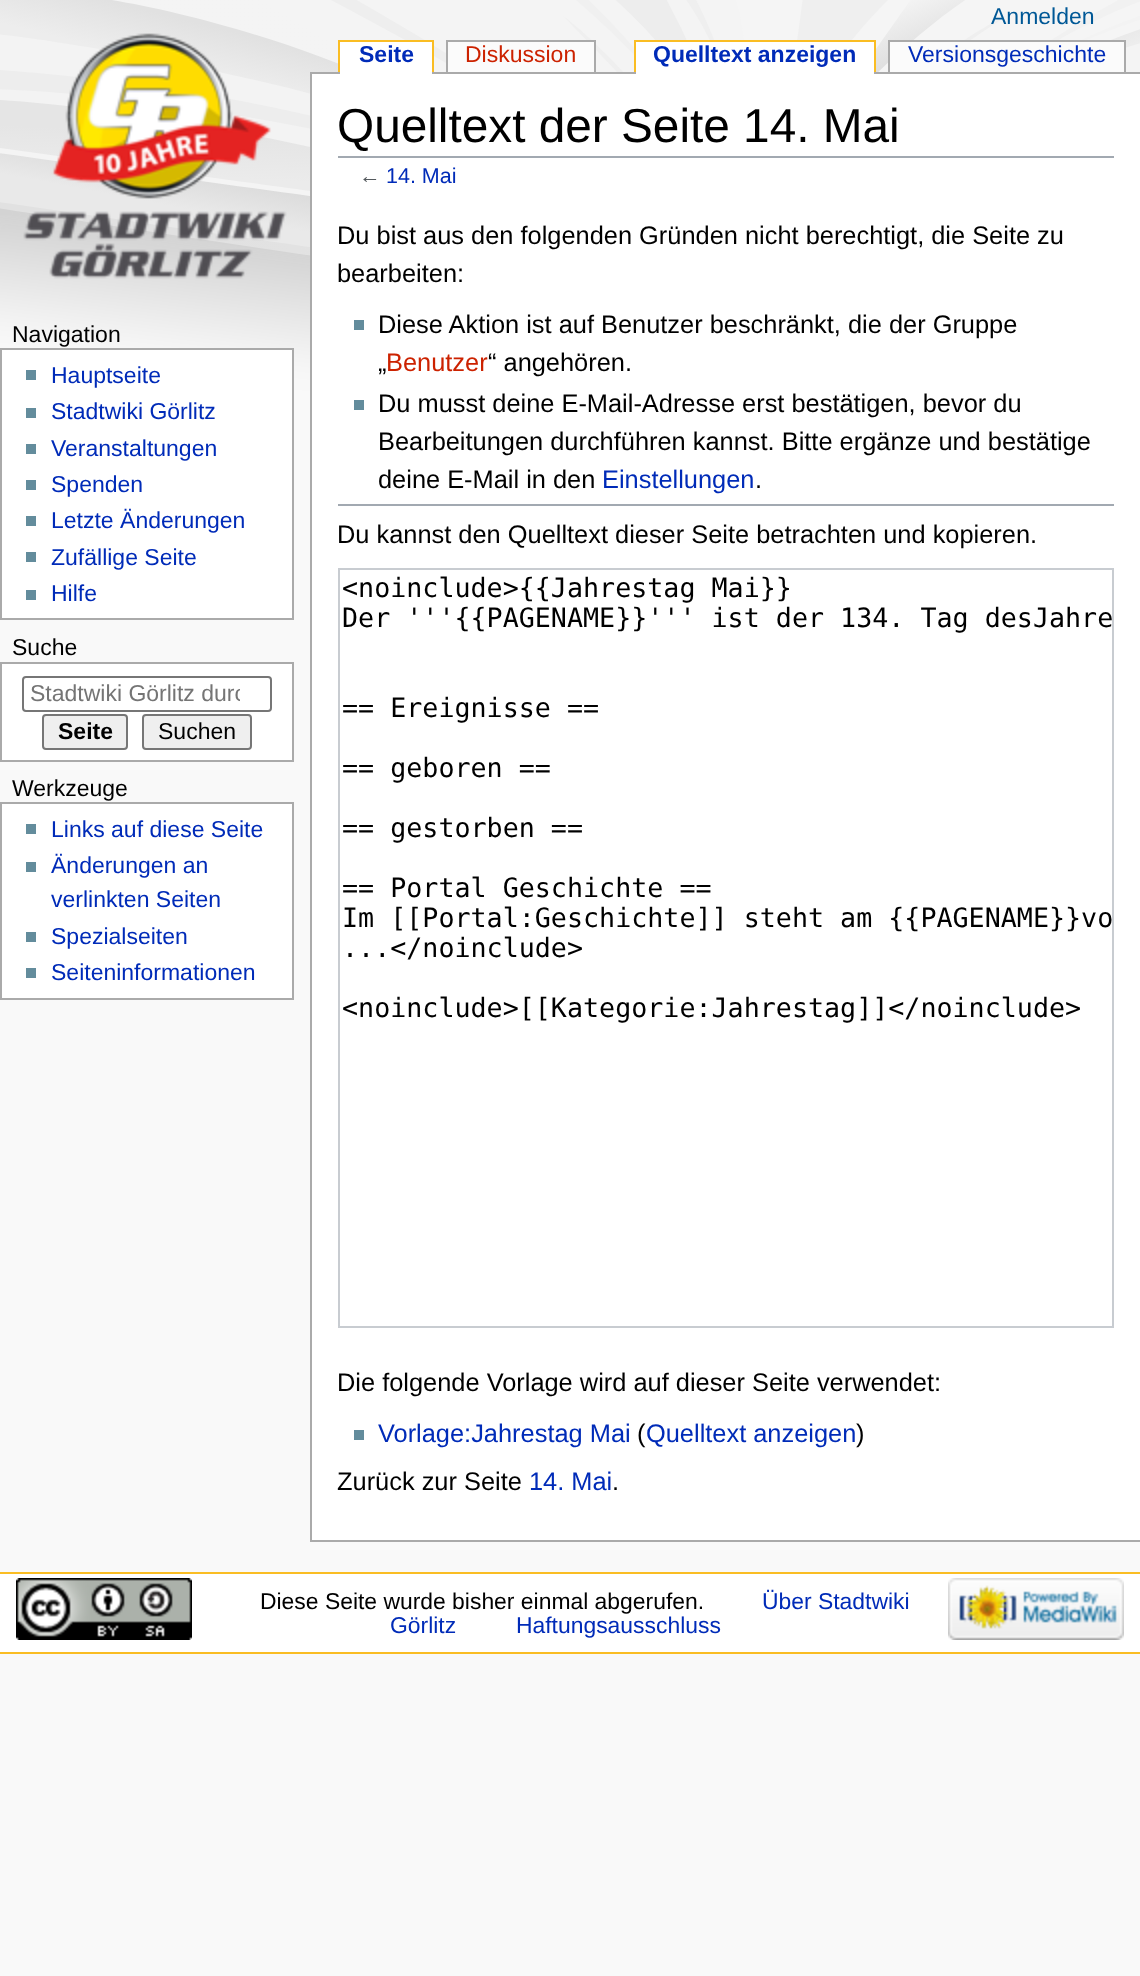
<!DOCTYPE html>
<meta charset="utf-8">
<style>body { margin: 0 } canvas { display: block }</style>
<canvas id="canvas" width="1140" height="1976"></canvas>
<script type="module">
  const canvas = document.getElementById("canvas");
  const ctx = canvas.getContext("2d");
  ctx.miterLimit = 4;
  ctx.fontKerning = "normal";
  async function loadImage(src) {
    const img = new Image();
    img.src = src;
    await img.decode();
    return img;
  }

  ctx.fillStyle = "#f9f9f9";
  ctx.fillRect(0, 0, 1140, 1976);
  ctx.drawImage(await loadImage("img1.png"), 0, 0, 1140, 419);
  ctx.font = "23px Liberation Sans";
  ctx.fillStyle = "#005896";
  ctx.fillText("Anmelden", 991, 24);
  ctx.drawImage(await loadImage("img2.png"), 23, 33, 264, 246);
  ctx.fillStyle = "#aaaaaa";
  ctx.fillRect(310, 72, 830, 2);
  ctx.fillStyle = "#ffffff";
  ctx.fillRect(340, 42, 92, 32);
  ctx.font = "bold 23px Liberation Sans";
  ctx.fillStyle = "#002bb8";
  ctx.fillText("Seite", 359, 62);
  ctx.fillStyle = "#fabd23";
  ctx.fillRect(338, 40, 96, 2);
  ctx.fillRect(432, 40, 2, 32);
  ctx.fillRect(338, 40, 2, 32);
  ctx.fillStyle = "#fbfbfb";
  ctx.fillRect(448, 42, 146, 30);
  ctx.font = "23px Liberation Sans";
  ctx.fillStyle = "#cc2200";
  ctx.fillText("Diskussion", 465, 62);
  ctx.fillStyle = "#aaaaaa";
  ctx.fillRect(446, 40, 150, 2);
  ctx.fillRect(594, 40, 2, 32);
  ctx.fillRect(446, 40, 2, 32);
  ctx.fillStyle = "#ffffff";
  ctx.fillRect(636, 42, 238, 32);
  ctx.font = "bold 23px Liberation Sans";
  ctx.fillStyle = "#002bb8";
  ctx.fillText("Quelltext anzeigen", 653, 62);
  ctx.fillStyle = "#fabd23";
  ctx.fillRect(634, 40, 242, 2);
  ctx.fillRect(874, 40, 2, 32);
  ctx.fillRect(634, 40, 2, 32);
  ctx.fillStyle = "#fbfbfb";
  ctx.fillRect(890, 42, 234, 30);
  ctx.font = "23px Liberation Sans";
  ctx.fillStyle = "#002bb8";
  ctx.fillText("Versionsgeschichte", 908, 62);
  ctx.fillStyle = "#aaaaaa";
  ctx.fillRect(888, 40, 238, 2);
  ctx.fillRect(1124, 40, 2, 32);
  ctx.fillRect(888, 40, 2, 32);
  ctx.fillStyle = "#000000";
  ctx.fillText("Navigation", 12, 342);
  ctx.fillStyle = "#ffffff";
  ctx.beginPath();
  ctx.rect(1, 349, 292, 270);
  ctx.fill();
  ctx.strokeStyle = "#aaaaaa";
  ctx.lineWidth = 2;
  ctx.stroke();
  ctx.fillStyle = "#638c9c";
  ctx.fillRect(26, 370, 10, 10);
  ctx.fillStyle = "#002bb8";
  ctx.fillText("Hauptseite", 51, 383);
  ctx.fillStyle = "#638c9c";
  ctx.fillRect(26, 408, 10, 10);
  ctx.fillStyle = "#002bb8";
  ctx.fillText("Stadtwiki Görlitz", 51, 419);
  ctx.fillStyle = "#638c9c";
  ctx.fillRect(26, 444, 10, 10);
  ctx.fillStyle = "#002bb8";
  ctx.fillText("Veranstaltungen", 51, 456);
  ctx.fillStyle = "#638c9c";
  ctx.fillRect(26, 480, 10, 10);
  ctx.fillStyle = "#002bb8";
  ctx.fillText("Spenden", 51, 492);
  ctx.fillStyle = "#638c9c";
  ctx.fillRect(26, 516, 10, 10);
  ctx.fillStyle = "#002bb8";
  ctx.fillText("Letzte Änderungen", 51, 528);
  ctx.fillStyle = "#638c9c";
  ctx.fillRect(26, 552, 10, 10);
  ctx.fillStyle = "#002bb8";
  ctx.fillText("Zufällige Seite", 51, 565);
  ctx.fillStyle = "#638c9c";
  ctx.fillRect(26, 590, 10, 10);
  ctx.fillStyle = "#002bb8";
  ctx.fillText("Hilfe", 51, 601);
  ctx.fillStyle = "#000000";
  ctx.fillText("Suche", 12, 655);
  ctx.fillStyle = "#ffffff";
  ctx.beginPath();
  ctx.rect(1, 663, 292, 98);
  ctx.fill();
  ctx.stroke();
  ctx.beginPath();
  ctx.roundRect(23, 677, 248, 34, 3);
  ctx.strokeStyle = "#767676";
  ctx.stroke();
  ctx.save();
  ctx.beginPath();
  ctx.rect(30, 682, 210, 24);
  ctx.clip();
  ctx.fillStyle = "#757575";
  ctx.fillText("Stadtwiki Görlitz durc", 30, 701);
  ctx.restore();
  ctx.fillStyle = "#efefef";
  ctx.beginPath();
  ctx.roundRect(43, 715, 84, 34, 3);
  ctx.fill();
  ctx.stroke();
  ctx.font = "bold 23px Liberation Sans";
  ctx.fillStyle = "#000000";
  ctx.fillText("Seite", 58, 739);
  ctx.fillStyle = "#efefef";
  ctx.beginPath();
  ctx.roundRect(143, 715, 108, 34, 3);
  ctx.fill();
  ctx.stroke();
  ctx.font = "23px Liberation Sans";
  ctx.fillStyle = "#000000";
  ctx.fillText("Suchen", 158, 739);
  ctx.fillText("Werkzeuge", 12, 796);
  ctx.fillStyle = "#ffffff";
  ctx.beginPath();
  ctx.rect(1, 803, 292, 196);
  ctx.fill();
  ctx.strokeStyle = "#aaaaaa";
  ctx.stroke();
  ctx.fillStyle = "#638c9c";
  ctx.fillRect(26, 824, 10, 10);
  ctx.fillStyle = "#002bb8";
  ctx.fillText("Links auf diese Seite", 51, 837);
  ctx.fillStyle = "#638c9c";
  ctx.fillRect(26, 862, 10, 10);
  ctx.fillStyle = "#002bb8";
  ctx.fillText("Änderungen an", 51, 873);
  ctx.fillText("verlinkten Seiten", 51, 907);
  ctx.fillStyle = "#638c9c";
  ctx.fillRect(26, 932, 10, 10);
  ctx.fillStyle = "#002bb8";
  ctx.fillText("Spezialseiten", 51, 944);
  ctx.fillStyle = "#638c9c";
  ctx.fillRect(26, 968, 10, 10);
  ctx.fillStyle = "#002bb8";
  ctx.fillText("Seiteninformationen", 51, 980);
  ctx.fillStyle = "#ffffff";
  ctx.fillRect(312, 74, 828, 1466);
  ctx.fillStyle = "#aaaaaa";
  ctx.fillRect(310, 1540, 830, 2);
  ctx.fillRect(310, 72, 2, 1470);
  ctx.fillStyle = "#a2a9b1";
  ctx.fillRect(338, 156, 776, 2);
  ctx.font = "47.75px Liberation Sans";
  ctx.fillStyle = "#000000";
  ctx.fillText("Quelltext der Seite 14. Mai", 337, 142);
  ctx.font = "21.5px Liberation Sans";
  ctx.fillStyle = "#54595d";
  ctx.fillText("←", 359, 183);
  ctx.fillStyle = "#002bb8";
  ctx.fillText("14. Mai", 386, 183);
  ctx.font = "25.4px Liberation Sans";
  ctx.fillStyle = "#000000";
  ctx.fillText("Du bist aus den folgenden Gründen nicht berechtigt, die Seite zu", 337, 244);
  ctx.fillText("bearbeiten:", 337, 282);
  ctx.fillStyle = "#638c9c";
  ctx.fillRect(354, 320, 10, 10);
  ctx.fillStyle = "#000000";
  ctx.fillText("Diese Aktion ist auf Benutzer beschränkt, die der Gruppe", 378, 333);
  ctx.fillText("„", 378, 371);
  ctx.fillStyle = "#cc2200";
  ctx.fillText("Benutzer", 386, 371);
  ctx.fillStyle = "#000000";
  ctx.fillText("“ angehören.", 488, 371);
  ctx.fillStyle = "#638c9c";
  ctx.fillRect(354, 400, 10, 10);
  ctx.fillStyle = "#000000";
  ctx.fillText("Du musst deine E-Mail-Adresse erst bestätigen, bevor du", 378, 412);
  ctx.fillText("Bearbeitungen durchführen kannst. Bitte ergänze und bestätige", 378, 450);
  ctx.fillText("deine E-Mail in den", 378, 488);
  ctx.fillStyle = "#002bb8";
  ctx.fillText("Einstellungen", 602, 488);
  ctx.fillStyle = "#000000";
  ctx.fillText(".", 755, 488);
  ctx.fillStyle = "#a2a9b1";
  ctx.fillRect(338, 504, 776, 2);
  ctx.fillStyle = "#000000";
  ctx.fillText("Du kannst den Quelltext dieser Seite betrachten und kopieren.", 337, 543);
  ctx.strokeStyle = "#c8ccd1";
  ctx.strokeRect(339, 569, 774, 758);
  ctx.font = "26.7px DejaVu Sans Mono";
  ctx.fillText("<noinclude>{{Jahrestag Mai}}", 342, 597);
  ctx.fillText("Der '''{{PAGENAME}}''' ist der 134. Tag desJahre", 342, 627);
  ctx.fillText("== Ereignisse ==", 342, 717);
  ctx.fillText("== geboren ==", 342, 777);
  ctx.fillText("== gestorben ==", 342, 837);
  ctx.fillText("== Portal Geschichte ==", 342, 897);
  ctx.fillText("Im [[Portal:Geschichte]] steht am {{PAGENAME}}vo", 342, 927);
  ctx.fillText("...<\/noinclude>", 342, 957);
  ctx.fillText("<noinclude>[[Kategorie:Jahrestag]]<\/noinclude>", 342, 1017);
  ctx.font = "25.4px Liberation Sans";
  ctx.fillText("Die folgende Vorlage wird auf dieser Seite verwendet:", 337, 1391);
  ctx.fillStyle = "#638c9c";
  ctx.fillRect(354, 1430, 10, 10);
  ctx.fillStyle = "#002bb8";
  ctx.fillText("Vorlage:Jahrestag Mai", 378, 1442);
  ctx.fillStyle = "#000000";
  ctx.fillText("(", 637, 1442);
  ctx.fillStyle = "#002bb8";
  ctx.fillText("Quelltext anzeigen", 646, 1442);
  ctx.fillStyle = "#000000";
  ctx.fillText(")", 856, 1442);
  ctx.fillText("Zurück zur Seite", 337, 1490);
  ctx.fillStyle = "#002bb8";
  ctx.fillText("14. Mai", 529, 1490);
  ctx.fillStyle = "#000000";
  ctx.fillText(".", 612, 1490);
  ctx.fillStyle = "#ffffff";
  ctx.fillRect(0, 1574, 1140, 78);
  ctx.fillStyle = "#fabd23";
  ctx.fillRect(0, 1572, 1140, 2);
  ctx.fillRect(0, 1652, 1140, 2);
  ctx.drawImage(await loadImage("img3.png"), 16, 1578, 176, 62);
  ctx.font = "22.9px Liberation Sans";
  ctx.fillStyle = "#000000";
  ctx.fillText("Diese Seite wurde bisher einmal abgerufen.", 260, 1609);
  ctx.fillStyle = "#002bb8";
  ctx.fillText("Über Stadtwiki", 762, 1609);
  ctx.fillText("Görlitz", 390, 1633);
  ctx.fillText("Haftungsausschluss", 516, 1633);
  ctx.drawImage(await loadImage("img4.png"), 948, 1578, 176, 62);
</script>
